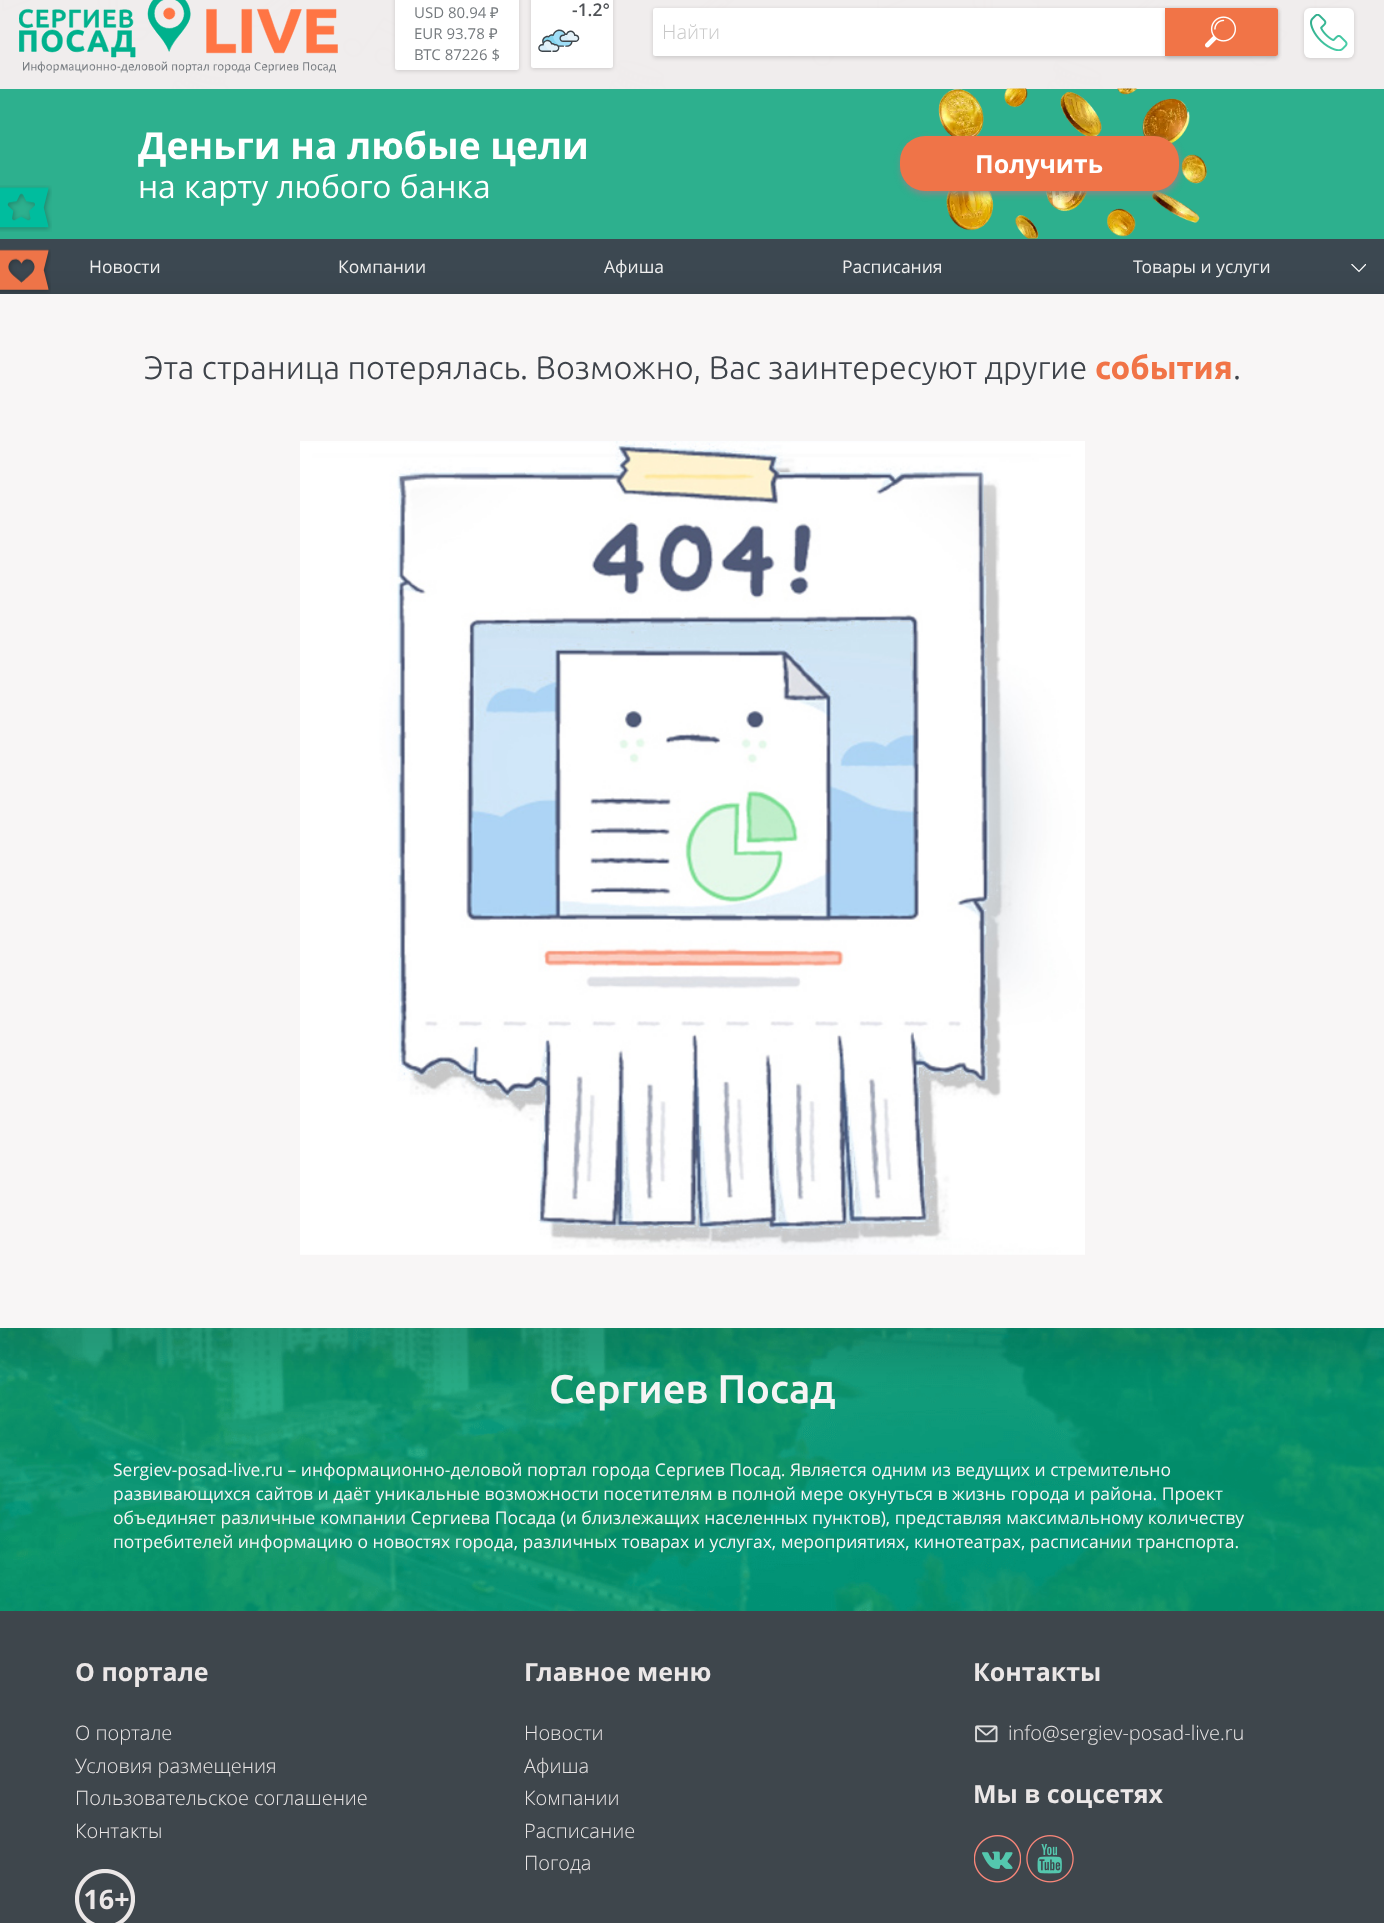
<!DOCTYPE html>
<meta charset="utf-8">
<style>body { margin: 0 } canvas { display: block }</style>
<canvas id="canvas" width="1384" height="1923"></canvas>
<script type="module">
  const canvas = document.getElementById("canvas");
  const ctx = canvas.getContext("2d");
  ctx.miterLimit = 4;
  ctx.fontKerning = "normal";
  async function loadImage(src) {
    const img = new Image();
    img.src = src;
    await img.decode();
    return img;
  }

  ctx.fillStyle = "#ffffff";
  ctx.fillRect(0, 0, 1384, 1923);
  ctx.drawImage(await loadImage("img1.png"), 0, 0, 1384, 89);
  ctx.fillStyle = "rgba(239, 236, 236, 0.9)";
  ctx.fillRect(0, 0, 1384, 89);
  ctx.drawImage(await loadImage("img2.png"), 19, 0, 319, 73);
  ctx.fillStyle = "rgba(0, 0, 0, 0.15)";
  ctx.filter = "blur(2px)";
  ctx.beginPath();
  ctx.roundRect(395, -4, 124, 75, 2.5);
  ctx.fill();
  ctx.filter = "none";
  ctx.fillStyle = "#ffffff";
  ctx.beginPath();
  ctx.roundRect(395, -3, 124, 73, 2.5);
  ctx.fill();
  ctx.font = "15px Open Sans";
  ctx.fillStyle = "#757a7e";
  ctx.fillText("USD 80.94", 414, 18);
  ctx.font = "15px Noto Sans";
  ctx.fillText("₽", 490, 18);
  ctx.font = "15px Open Sans";
  ctx.fillText("EUR 93.78", 414, 39);
  ctx.font = "15px Noto Sans";
  ctx.fillText("₽", 489, 39);
  ctx.font = "15px Open Sans";
  ctx.fillText("BTC 87226 $", 414, 60);
  ctx.fillStyle = "rgba(0, 0, 0, 0.15)";
  ctx.filter = "blur(2px)";
  ctx.beginPath();
  ctx.roundRect(531, -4, 82, 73, 2.5);
  ctx.fill();
  ctx.filter = "none";
  ctx.fillStyle = "#ffffff";
  ctx.beginPath();
  ctx.roundRect(531, -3, 82, 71, 2.5);
  ctx.fill();
  ctx.font = "600 17.5px Open Sans";
  ctx.fillStyle = "#505357";
  ctx.fillText("-1.2°", 572, 16);
  ctx.drawImage(await loadImage("img3.png"), 538, 29, 42, 23);
  ctx.fillStyle = "rgba(0, 0, 0, 0.15)";
  ctx.filter = "blur(2px)";
  ctx.beginPath();
  ctx.roundRect(653, 9, 625, 49, 2.5);
  ctx.fill();
  ctx.filter = "none";
  ctx.fillStyle = "#ffffff";
  ctx.beginPath();
  ctx.roundRect(653, 8, 625, 48, 2.5);
  ctx.fill();
  ctx.font = "300 20px Open Sans";
  ctx.fillStyle = "#c8c8c8";
  ctx.fillText("Найти", 662, 39);
  ctx.fillStyle = "rgba(0, 0, 0, 0.15)";
  ctx.filter = "blur(2px)";
  ctx.beginPath();
  ctx.roundRect(1165, 9, 113, 49, 2.5);
  ctx.fill();
  ctx.filter = "none";
  ctx.fillStyle = "#f17447";
  ctx.beginPath();
  ctx.roundRect(1165, 8, 113, 48, [0, 2.5, 2.5, 0]);
  ctx.fill();
  ctx.drawImage(await loadImage("img4.png"), 1205, 16, 31, 32);
  ctx.fillStyle = "rgba(0, 0, 0, 0.15)";
  ctx.filter = "blur(2px)";
  ctx.beginPath();
  ctx.roundRect(1304, 9, 50, 50, 6);
  ctx.fill();
  ctx.filter = "none";
  ctx.fillStyle = "#ffffff";
  ctx.beginPath();
  ctx.roundRect(1304, 8, 50, 50, 6);
  ctx.fill();
  ctx.drawImage(await loadImage("img5.png"), 1310, 14, 38, 37);
  ctx.fillStyle = "#2db08e";
  ctx.fillRect(0, 89, 1384, 150);
  ctx.drawImage(await loadImage("img6.png"), 0, 185, 52, 47);
  ctx.drawImage(await loadImage("img7.png"), 938, 88, 270, 151);
  ctx.font = "bold 37.25px Open Sans";
  ctx.fillStyle = "#ffffff";
  ctx.fillText("Деньги на любые цели", 138, 159);
  ctx.font = "31.75px Open Sans";
  ctx.fillText("на карту любого банка", 138, 198);
  ctx.fillStyle = "#888888";
  ctx.filter = "blur(3px)";
  ctx.beginPath();
  ctx.roundRect(901, 139, 279, 55, 25);
  ctx.fill();
  ctx.filter = "none";
  ctx.fillStyle = "#ef7448";
  ctx.beginPath();
  ctx.roundRect(900, 136, 279, 55, 25);
  ctx.fill();
  ctx.font = "bold 25px Open Sans";
  ctx.fillStyle = "#ffffff";
  ctx.fillText("Получить", 975, 173);
  ctx.fillStyle = "#3c4851";
  ctx.fillRect(0, 239, 1384, 55);
  ctx.drawImage(await loadImage("img10.png"), 0, 1328, 1384, 283);
  ctx.fillStyle = "rgba(0, 1, 5, 0.1)";
  ctx.filter = "blur(14.5px)";
  ctx.beginPath();
  ctx.rect(-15, 298, 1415, 1063);
  ctx.fill();
  ctx.filter = "none";
  ctx.drawImage(await loadImage("img8.png"), 0, 249, 51, 45);
  ctx.font = "17.5px Open Sans";
  ctx.fillStyle = "#eeeeee";
  ctx.fillText("Новости", 89, 273);
  ctx.fillText("Компании", 338, 273);
  ctx.fillText("Афиша", 604, 273);
  ctx.fillText("Расписания", 842, 273);
  ctx.save();
  ctx.beginPath();
  ctx.rect(1351, 264, 15, 9);
  ctx.clip();
  ctx.beginPath();
  ctx.moveTo(1351.5, 264);
  ctx.lineTo(1359, 271.5);
  ctx.lineTo(1366, 264);
  ctx.strokeStyle = "#ffffff";
  ctx.lineWidth = 1.2;
  ctx.stroke();
  ctx.restore();
  ctx.fillText("Товары и услуги", 1133, 273);
  ctx.fillStyle = "#f8f6f6";
  ctx.fillRect(0, 294, 1384, 1034);
  ctx.font = "300 32.5px Ubuntu";
  ctx.fillStyle = "#3e434a";
  ctx.fillText("Эта страница потерялась. Возможно, Вас заинтересуют другие", 144, 379);
  ctx.font = "bold 32.5px Ubuntu";
  ctx.fillStyle = "#f17447";
  ctx.fillText("события", 1095, 379);
  ctx.font = "300 32.5px Ubuntu";
  ctx.fillStyle = "#3e434a";
  ctx.fillText(".", 1233, 379);
  ctx.drawImage(await loadImage("img9.png"), 300, 441, 785, 814);
  ctx.font = "500 40px Ubuntu";
  ctx.fillStyle = "#f6f4f4";
  ctx.fillText("Сергиев Посад", 549, 1403);
  ctx.font = "17.5px Open Sans";
  ctx.fillText("Sergiev-posad-live.ru – информационно-деловой портал города Сергиев Посад. Является одним из ведущих и стремительно", 113, 1476);
  ctx.fillText("развивающихся сайтов и даёт уникальные возможности посетителям в полной мере окунуться в жизнь города и района. Проект", 113, 1500);
  ctx.fillText("объединяет различные компании Сергиева Посада (и близлежащих населенных пунктов), представляя максимальному количеству", 113, 1524);
  ctx.fillText("потребителей информацию о новостях города, различных товарах и услугах, мероприятиях, кинотеатрах, расписании транспорта.", 113, 1548);
  ctx.fillStyle = "#3e464c";
  ctx.fillRect(0, 1611, 1384, 312);
  ctx.font = "bold 25px Open Sans";
  ctx.fillStyle = "#ebe7e7";
  ctx.fillText("О портале", 75, 1681);
  ctx.font = "300 20px Open Sans";
  ctx.fillText("О портале", 75, 1740);
  ctx.fillText("Условия размещения", 75, 1773);
  ctx.fillText("Пользовательское соглашение", 75, 1805);
  ctx.fillText("Контакты", 75, 1838);
  ctx.drawImage(await loadImage("img11.png"), 75, 1869, 60, 54);
  ctx.font = "bold 25px Open Sans";
  ctx.fillText("Главное меню", 524, 1681);
  ctx.font = "300 20px Open Sans";
  ctx.fillText("Новости", 524, 1740);
  ctx.fillText("Афиша", 524, 1773);
  ctx.fillText("Компании", 524, 1805);
  ctx.fillText("Расписание", 524, 1838);
  ctx.fillText("Погода", 524, 1870);
  ctx.font = "bold 25px Open Sans";
  ctx.fillText("Контакты", 973, 1681);
  ctx.drawImage(await loadImage("img12.png"), 975, 1725, 23, 18);
  ctx.font = "300 20px Open Sans";
  ctx.fillText("info@sergiev-posad-live.ru", 1008, 1740);
  ctx.font = "bold 25px Open Sans";
  ctx.fillText("Мы в соцсетях", 973, 1803);
  ctx.drawImage(await loadImage("img13.png"), 974, 1835, 47, 48);
  ctx.drawImage(await loadImage("img14.png"), 1026, 1835, 48, 48);
</script>
